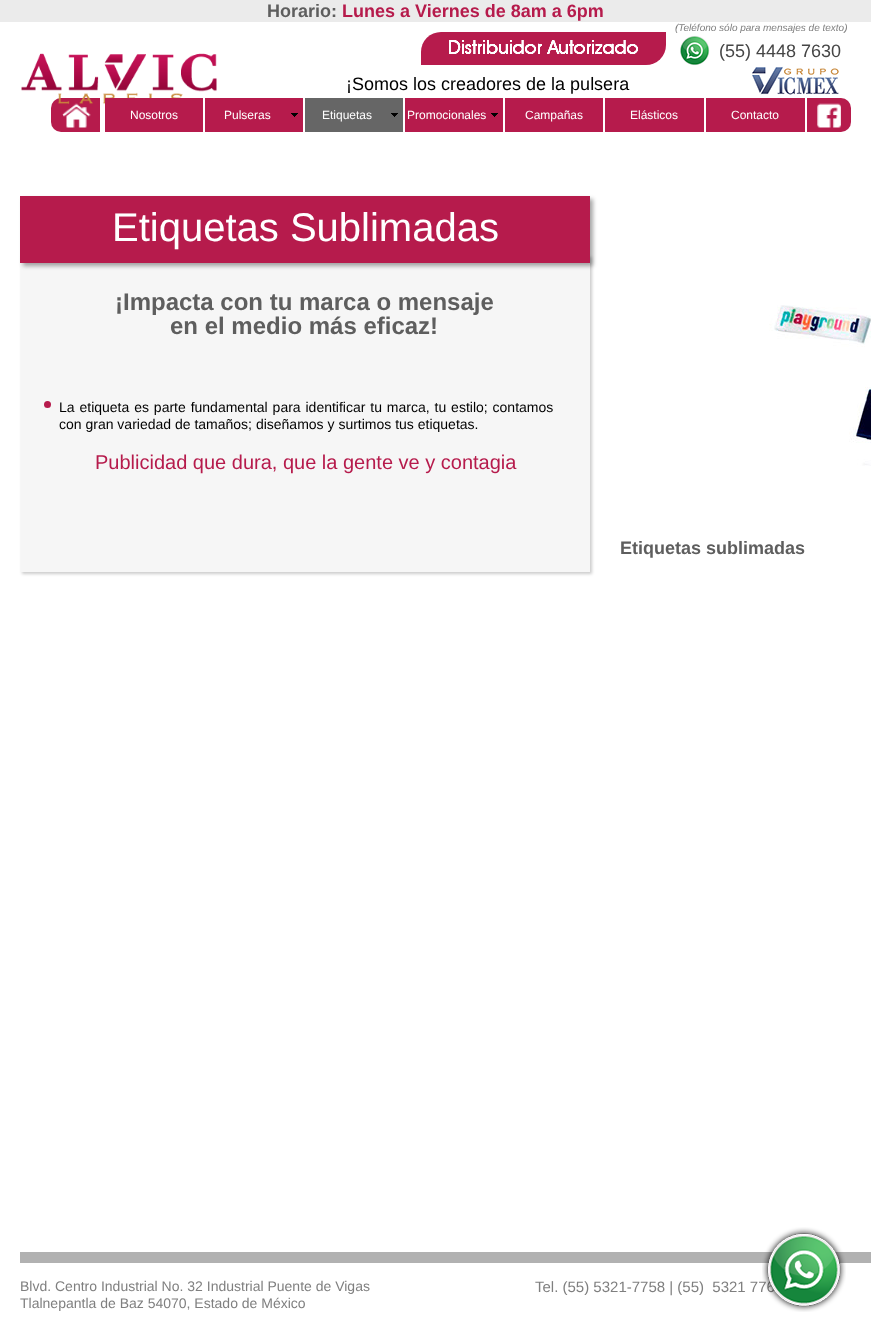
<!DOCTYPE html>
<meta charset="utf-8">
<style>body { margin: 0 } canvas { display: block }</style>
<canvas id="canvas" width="871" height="1341"></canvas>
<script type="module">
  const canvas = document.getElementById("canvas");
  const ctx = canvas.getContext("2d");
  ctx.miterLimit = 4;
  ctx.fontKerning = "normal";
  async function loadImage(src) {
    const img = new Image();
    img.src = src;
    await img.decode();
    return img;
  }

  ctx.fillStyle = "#ffffff";
  ctx.fillRect(0, 0, 871, 1341);
  ctx.fillStyle = "#ebebeb";
  ctx.fillRect(0, 0, 871, 22);
  ctx.font = "bold 18px Liberation Sans";
  ctx.fillStyle = "#5e5e5e";
  ctx.fillText("Horario:", 267, 17);
  ctx.fillStyle = "#b61b4c";
  ctx.fillText("Lunes a Viernes de 8am a 6pm", 342, 17);
  ctx.beginPath();
  ctx.roundRect(51, 98, 49, 34, [10, 0, 0, 10]);
  ctx.fill();
  ctx.drawImage(await loadImage("img2.png"), 62, 103, 29, 25);
  ctx.drawImage(await loadImage("img1.png"), 21, 53, 196, 52);
  ctx.fillRect(105, 98, 98, 34);
  ctx.font = "12px Liberation Sans";
  ctx.fillStyle = "#ffffff";
  ctx.fillText("Nosotros", 130, 119);
  ctx.fillStyle = "#b61b4c";
  ctx.fillRect(205, 98, 98, 34);
  ctx.fillStyle = "#ffffff";
  ctx.fillText("Pulseras", 224, 119);
  ctx.drawImage(await loadImage("img3.png"), 291, 113, 7, 4);
  ctx.fillStyle = "#666666";
  ctx.fillRect(305, 98, 98, 34);
  ctx.fillStyle = "#ffffff";
  ctx.fillText("Etiquetas", 322, 119);
  ctx.drawImage(await loadImage("img4.png"), 391, 113, 7, 4);
  ctx.fillStyle = "#b61b4c";
  ctx.fillRect(405, 98, 98, 34);
  ctx.fillStyle = "#ffffff";
  ctx.fillText("Promocionales", 407, 119);
  ctx.drawImage(await loadImage("img3.png"), 491, 113, 7, 4);
  ctx.fillStyle = "#b61b4c";
  ctx.fillRect(505, 98, 98, 34);
  ctx.fillStyle = "#ffffff";
  ctx.fillText("Campañas", 525, 119);
  ctx.fillStyle = "#b61b4c";
  ctx.fillRect(605, 98, 99, 34);
  ctx.fillStyle = "#ffffff";
  ctx.fillText("Elásticos", 630, 119);
  ctx.fillStyle = "#b61b4c";
  ctx.fillRect(706, 98, 99, 34);
  ctx.fillStyle = "#ffffff";
  ctx.fillText("Contacto", 731, 119);
  ctx.font = "italic 10px Liberation Sans";
  ctx.fillStyle = "#7f7f7f";
  ctx.fillText("(Teléfono sólo para mensajes de texto)", 675, 31);
  ctx.fillStyle = "#b61b4c";
  ctx.beginPath();
  ctx.roundRect(421, 32, 245, 33, [20, 0, 20, 0]);
  ctx.fill();
  ctx.drawImage(await loadImage("img5.png"), 680, 35, 30, 31);
  ctx.drawImage(await loadImage("img6.png"), 449, 40, 189, 14);
  ctx.font = "18px Liberation Sans";
  ctx.fillStyle = "#464646";
  ctx.fillText("(55) 4448 7630", 719, 57);
  ctx.fillStyle = "#000000";
  ctx.fillText("¡Somos los creadores de la pulsera", 346, 90);
  ctx.drawImage(await loadImage("img7.png"), 752, 66, 87, 29);
  ctx.fillStyle = "#b61b4c";
  ctx.beginPath();
  ctx.roundRect(807, 98, 44, 34, [0, 10, 10, 0]);
  ctx.fill();
  ctx.drawImage(await loadImage("img8.png"), 817, 103, 24, 25);
  ctx.fillStyle = "#b1b1b1";
  ctx.fillRect(20, 1252, 851, 11);
  ctx.font = "15px Liberation Sans";
  ctx.fillStyle = "#7f7f7f";
  ctx.fillText("Tel. (55) 5321-7758 | (55)  5321 776", 535, 1292);
  ctx.drawImage(await loadImage("img9.png"), 762, 1227, 84, 85);
  ctx.fillStyle = "rgba(0, 0, 0, 0.2)";
  ctx.filter = "blur(1.5px)";
  ctx.beginPath();
  ctx.rect(22, 257, 570, 317);
  ctx.fill();
  ctx.filter = "none";
  ctx.fillStyle = "#f6f6f6";
  ctx.fillRect(21, 263, 569, 309);
  ctx.fillStyle = "rgba(0, 0, 0, 0.35)";
  ctx.filter = "blur(2px)";
  ctx.beginPath();
  ctx.rect(23, 199, 570, 67);
  ctx.fill();
  ctx.filter = "none";
  ctx.fillStyle = "#b61b4c";
  ctx.fillRect(20, 196, 570, 67);
  ctx.font = "40px Liberation Sans";
  ctx.fillStyle = "#ffffff";
  ctx.fillText("Etiquetas Sublimadas", 112, 241);
  ctx.fillStyle = "#b61b4c";
  ctx.beginPath();
  ctx.arc(47.5, 404.5, 3.5, 0, Math.PI * 2);
  ctx.fill();
  ctx.font = "bold 24px Liberation Sans";
  ctx.fillStyle = "#5e5e5e";
  ctx.fillText("¡Impacta con tu marca o mensaje", 115, 310);
  ctx.fillText("en el medio más eficaz!", 170, 334);
  ctx.wordSpacing = "1px";
  ctx.font = "14px Liberation Sans";
  ctx.fillStyle = "#000000";
  ctx.fillText("La etiqueta es parte fundamental para identificar tu marca, tu estilo; contamos", 59, 412);
  ctx.wordSpacing = "0px";
  ctx.fillText("con gran variedad de tamaños; diseñamos y surtimos tus etiquetas.", 59, 429);
  ctx.font = "20px Liberation Sans";
  ctx.fillStyle = "#b61b4c";
  ctx.fillText("Publicidad que dura, que la gente ve y contagia", 95, 469);
  ctx.drawImage(await loadImage("img10.png"), 769, 305, 102, 161);
  ctx.font = "bold 18px Liberation Sans";
  ctx.fillStyle = "#5e5e5e";
  ctx.fillText("Etiquetas sublimadas", 620, 554);
  ctx.font = "14px Liberation Sans";
  ctx.fillStyle = "#7f7f7f";
  ctx.fillText("Blvd. Centro Industrial No. 32 Industrial Puente de Vigas", 20, 1291);
  ctx.fillText("Tlalnepantla de Baz 54070, Estado de México", 20, 1308);
</script>
